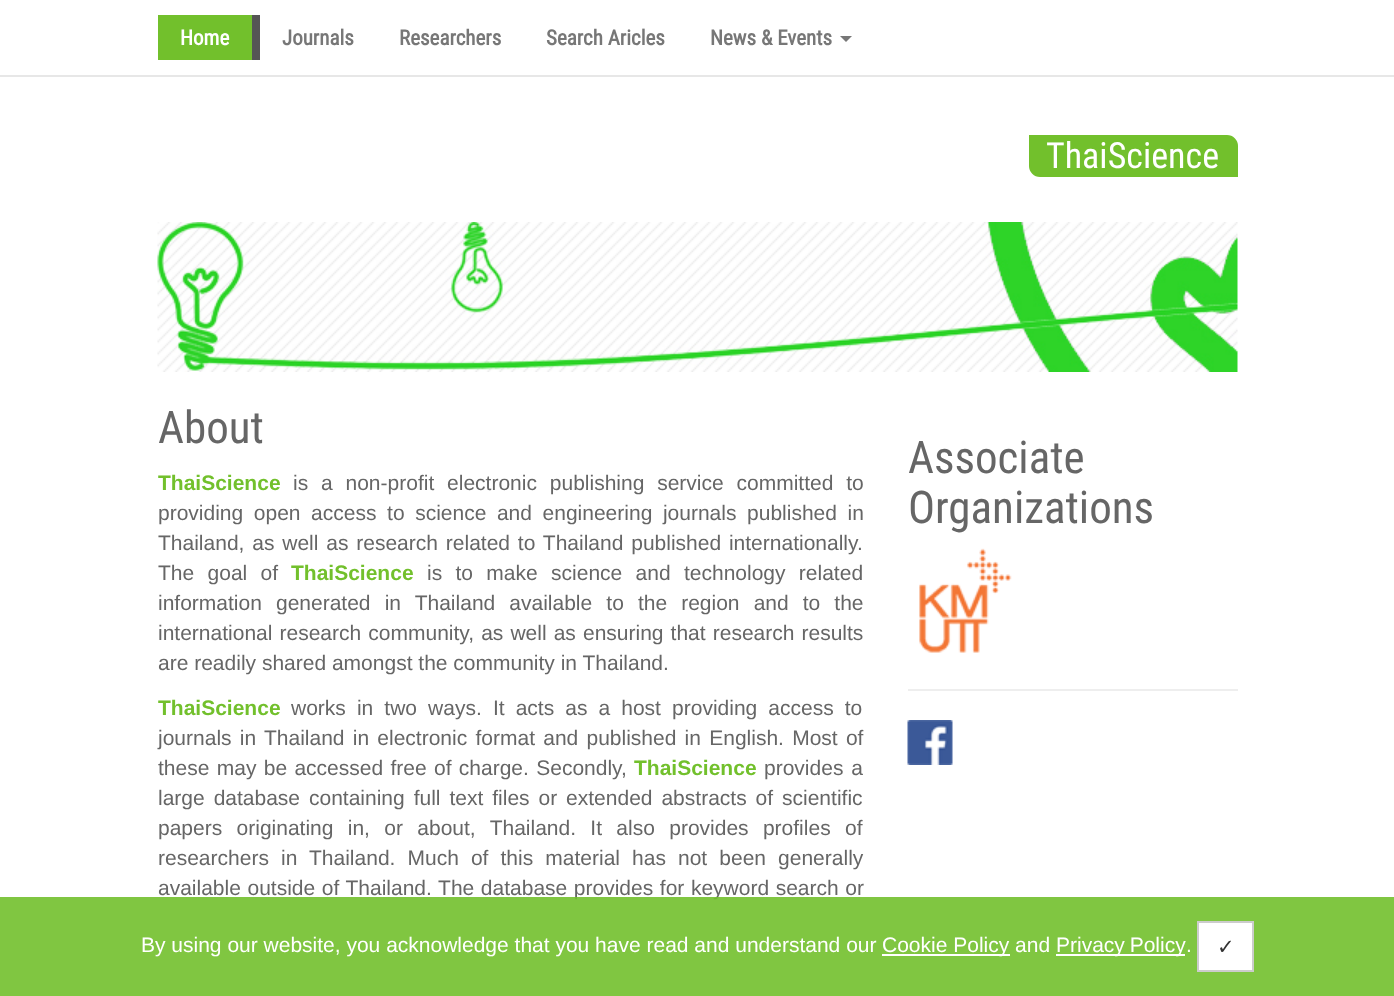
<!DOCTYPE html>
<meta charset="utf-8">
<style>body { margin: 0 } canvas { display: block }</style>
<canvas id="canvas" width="1394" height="996"></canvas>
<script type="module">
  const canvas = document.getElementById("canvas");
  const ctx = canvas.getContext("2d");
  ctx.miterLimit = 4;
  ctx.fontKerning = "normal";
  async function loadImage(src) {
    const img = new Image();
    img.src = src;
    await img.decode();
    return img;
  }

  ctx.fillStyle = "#ffffff";
  ctx.fillRect(0, 0, 1394, 996);
  ctx.fillStyle = "#e7e7e7";
  ctx.fillRect(0, 75, 1394, 2);
  ctx.fillStyle = "#72c02c";
  ctx.fillRect(158, 15, 94, 45);
  ctx.fillStyle = "#555555";
  ctx.fillRect(252, 15, 8, 45);
  ctx.font = "bold 21px Roboto Condensed";
  ctx.fillStyle = "#ffffff";
  ctx.fillText("Home", 180, 45);
  ctx.fillStyle = "#777777";
  ctx.fillText("Journals", 282, 45);
  ctx.fillText("Researchers", 399, 45);
  ctx.fillText("Search Aricles", 546, 45);
  ctx.fillText("News & Events", 710, 45);
  ctx.beginPath();
  ctx.moveTo(840, 36);
  ctx.lineTo(852, 36);
  ctx.lineTo(846, 42);
  ctx.closePath();
  ctx.fill();
  ctx.fillStyle = "#72c02c";
  ctx.beginPath();
  ctx.roundRect(1030, 136, 207, 40, [0, 10, 0, 10]);
  ctx.fill();
  ctx.strokeStyle = "#72c02c";
  ctx.lineWidth = 2;
  ctx.stroke();
  ctx.font = "36px Roboto Condensed";
  ctx.fillStyle = "#ffffff";
  ctx.fillText("ThaiScience", 1046, 168);
  ctx.drawImage(await loadImage("img1.png"), 157, 222, 1081, 150);
  ctx.font = "45px Roboto Condensed";
  ctx.fillStyle = "#666666";
  ctx.fillText("About", 158, 443);
  ctx.font = "bold 21px Liberation Sans";
  ctx.fillStyle = "#72c02c";
  ctx.fillText("ThaiScience", 158, 490);
  ctx.wordSpacing = "7px";
  ctx.font = "21px Liberation Sans";
  ctx.fillStyle = "#666666";
  ctx.fillText("is a non-profit electronic publishing service committed to", 293, 490);
  ctx.wordSpacing = "4.75px";
  ctx.fillText("providing open access to science and engineering journals published in", 158, 520);
  ctx.wordSpacing = "2px";
  ctx.fillText("Thailand, as well as research related to Thailand published internationally.", 158, 550);
  ctx.wordSpacing = "7.5px";
  ctx.fillText("The goal of", 158, 580);
  ctx.wordSpacing = "0px";
  ctx.font = "bold 21px Liberation Sans";
  ctx.fillStyle = "#72c02c";
  ctx.fillText("ThaiScience", 291, 580);
  ctx.wordSpacing = "7.5px";
  ctx.font = "21px Liberation Sans";
  ctx.fillStyle = "#666666";
  ctx.fillText("is to make science and technology related", 427, 580);
  ctx.wordSpacing = "8.25px";
  ctx.fillText("information generated in Thailand available to the region and to the", 158, 610);
  ctx.wordSpacing = "1.25px";
  ctx.fillText("international research community, as well as ensuring that research results", 158, 640);
  ctx.wordSpacing = "0px";
  ctx.fillText("are readily shared amongst the community in Thailand.", 158, 670);
  ctx.font = "bold 21px Liberation Sans";
  ctx.fillStyle = "#72c02c";
  ctx.fillText("ThaiScience", 158, 715);
  ctx.wordSpacing = "5.25px";
  ctx.font = "21px Liberation Sans";
  ctx.fillStyle = "#666666";
  ctx.fillText("works in two ways. It acts as a host providing access to", 291, 715);
  ctx.wordSpacing = "2.4px";
  ctx.fillText("journals in Thailand in electronic format and published in English. Most of", 158, 745);
  ctx.wordSpacing = "1.5px";
  ctx.fillText("these may be accessed free of charge. Secondly,", 158, 775);
  ctx.wordSpacing = "0px";
  ctx.font = "bold 21px Liberation Sans";
  ctx.fillStyle = "#72c02c";
  ctx.fillText("ThaiScience", 634, 775);
  ctx.wordSpacing = "2px";
  ctx.font = "21px Liberation Sans";
  ctx.fillStyle = "#666666";
  ctx.fillText("provides a", 764, 775);
  ctx.wordSpacing = "3.1px";
  ctx.fillText("large database containing full text files or extended abstracts of scientific", 158, 805);
  ctx.wordSpacing = "8.5px";
  ctx.fillText("papers originating in, or about, Thailand. It also provides profiles of", 158, 835);
  ctx.wordSpacing = "6.25px";
  ctx.fillText("researchers in Thailand. Much of this material has not been generally", 158, 865);
  ctx.wordSpacing = "0.75px";
  ctx.fillText("available outside of Thailand. The database provides for keyword search or", 158, 895);
  ctx.wordSpacing = "0px";
  ctx.font = "45px Roboto Condensed";
  ctx.fillText("Associate", 908, 473);
  ctx.fillText("Organizations", 908, 523);
  ctx.drawImage(await loadImage("img2.png"), 919, 548, 93, 105);
  ctx.fillStyle = "#eeeeee";
  ctx.fillRect(908, 689, 330, 2);
  ctx.drawImage(await loadImage("img3.png"), 907, 720, 46, 45);
  ctx.fillStyle = "rgba(114, 192, 44, 0.9)";
  ctx.fillRect(0, 897, 1394, 99);
  ctx.font = "21px Liberation Sans";
  ctx.fillStyle = "#ffffff";
  ctx.fillText("By using our website, you acknowledge that you have read and understand our", 141, 952);
  ctx.fillRect(882, 954, 128, 2);
  ctx.fillText("Cookie Policy and", 882, 952);
  ctx.fillRect(1056, 954, 129, 2);
  ctx.wordSpacing = "-1px";
  ctx.fillText("Privacy Policy", 1056, 952);
  ctx.wordSpacing = "0px";
  ctx.fillText(".", 1186, 952);
  ctx.beginPath();
  ctx.rect(1198, 922, 55, 49);
  ctx.fill();
  ctx.strokeStyle = "#cccccc";
  ctx.stroke();
  ctx.font = "21px DejaVu Sans";
  ctx.fillStyle = "#333333";
  ctx.fillText("✓", 1217, 954);
</script>
